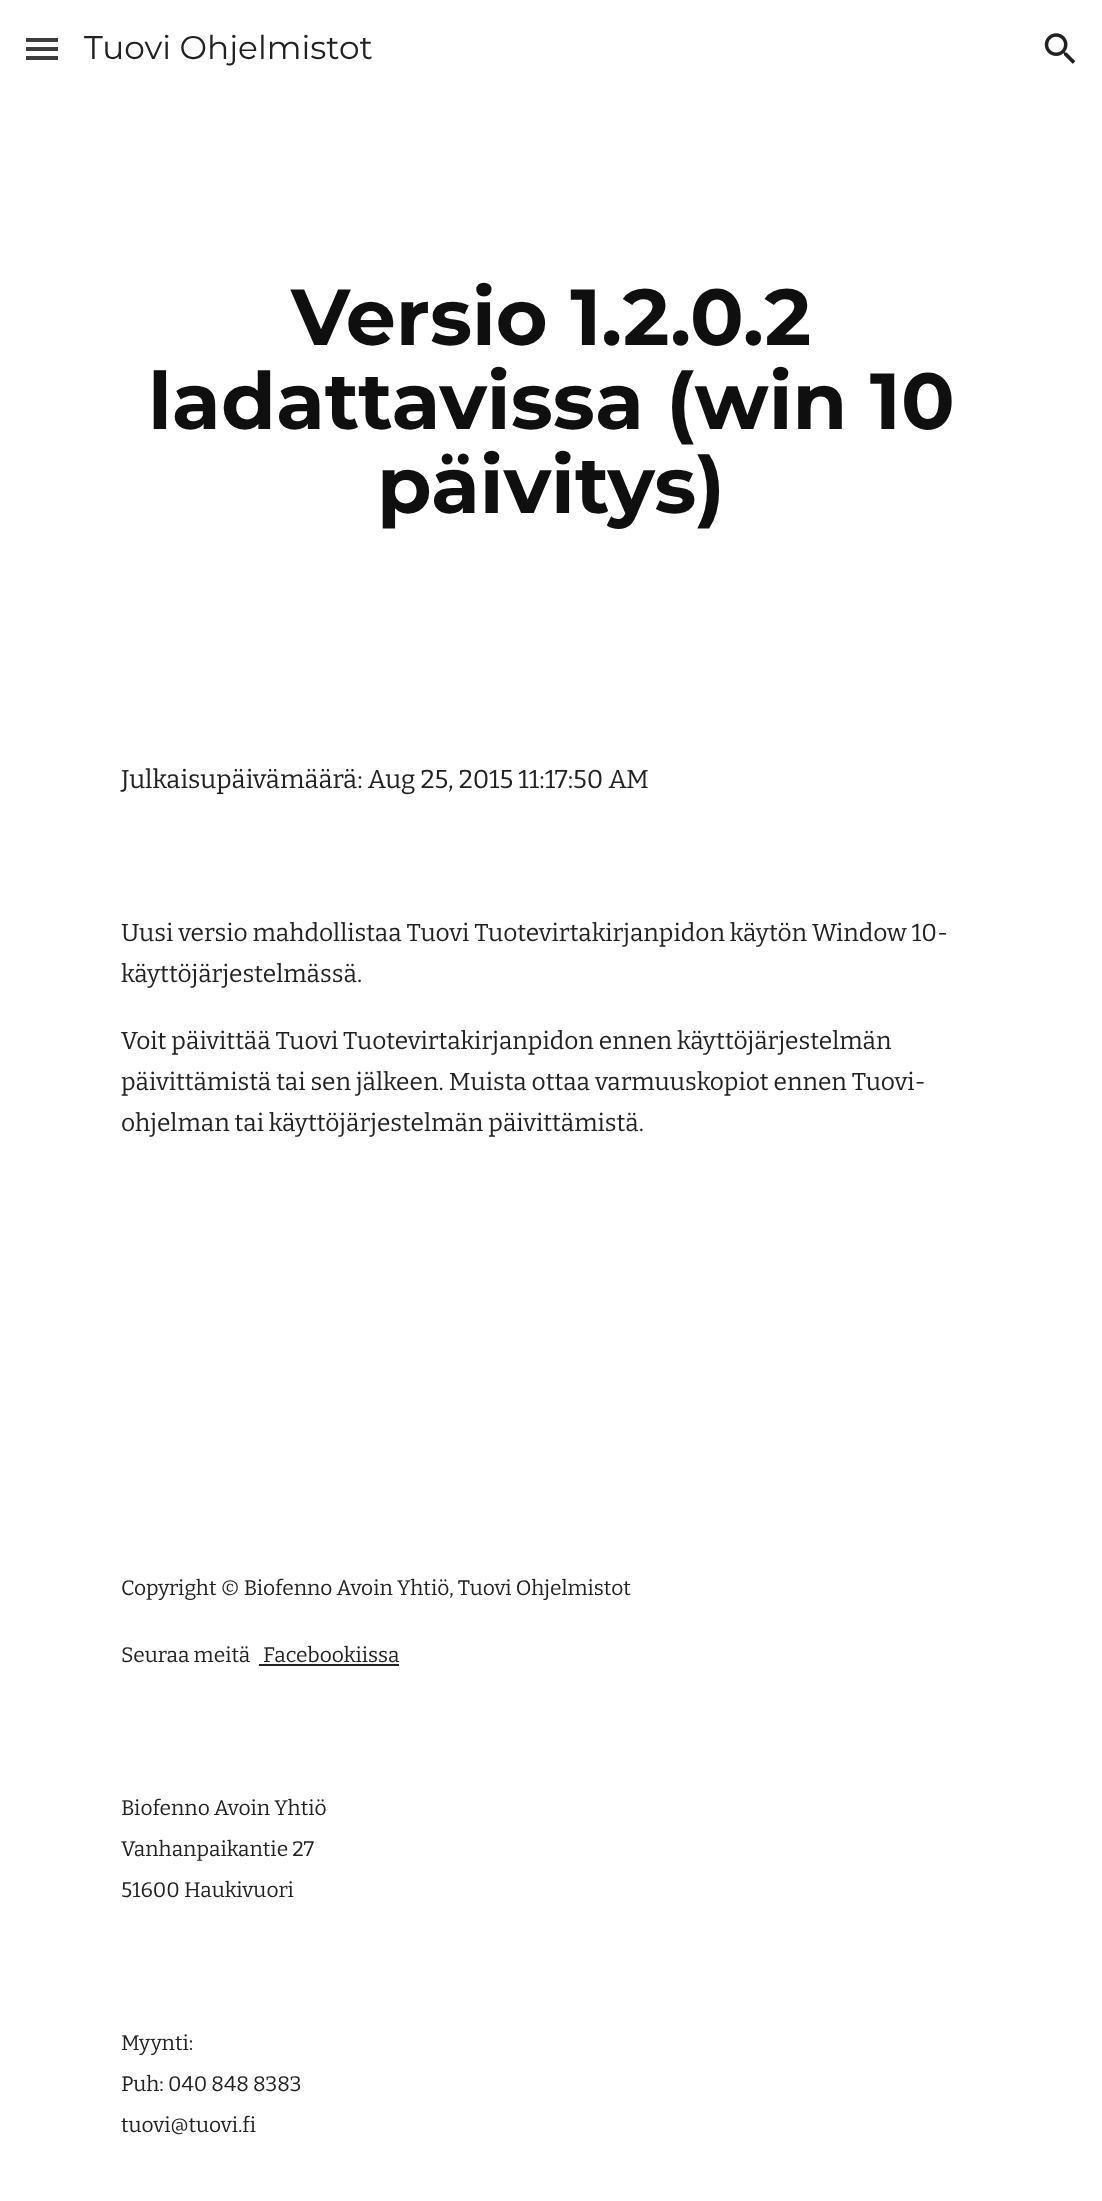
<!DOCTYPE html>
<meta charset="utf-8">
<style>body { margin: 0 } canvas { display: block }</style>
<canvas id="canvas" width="1102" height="2201"></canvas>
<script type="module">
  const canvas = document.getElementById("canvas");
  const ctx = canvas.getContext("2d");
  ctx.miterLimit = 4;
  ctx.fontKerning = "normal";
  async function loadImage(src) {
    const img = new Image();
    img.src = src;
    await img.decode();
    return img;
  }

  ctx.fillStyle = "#ffffff";
  ctx.fillRect(0, 0, 1102, 2201);
  ctx.fillStyle = "#3d3d3d";
  ctx.fillRect(26, 38, 32, 4);
  ctx.fillRect(26, 47, 32, 4);
  ctx.fillRect(26, 56, 32, 4);
  ctx.font = "32.75px Montserrat";
  ctx.fillStyle = "#212121";
  ctx.fillText("Tuovi Ohjelmistot", 84, 59);
  ctx.drawImage(await loadImage("img1.png"), 1044, 33, 32, 31);
  ctx.font = "bold 79.25px Montserrat";
  ctx.fillStyle = "#0f0f0f";
  ctx.fillText("Versio 1.2.0.2", 291, 345);
  ctx.fillText("ladattavissa (win 10", 148, 429);
  ctx.fillText("päivitys)", 377, 513);
  ctx.font = "25.7px Bitter";
  ctx.fillStyle = "#212121";
  ctx.fillText("Julkaisupäivämäärä: Aug 25, 2015 11:17:50 AM", 121, 788);
  ctx.font = "24.5px Bitter";
  ctx.fillText("Uusi versio mahdollistaa Tuovi Tuotevirtakirjanpidon käytön Window 10-", 121, 941);
  ctx.fillText("käyttöjärjestelmässä.", 121, 982);
  ctx.fillText("Voit päivittää Tuovi Tuotevirtakirjanpidon ennen käyttöjärjestelmän", 121, 1049);
  ctx.fillText("päivittämistä tai sen jälkeen. Muista ottaa varmuuskopiot ennen Tuovi-", 121, 1090);
  ctx.fillText("ohjelman tai käyttöjärjestelmän päivittämistä.", 121, 1131);
  ctx.font = "21px Bitter";
  ctx.fillText("Copyright © Biofenno Avoin Yhtiö, Tuovi Ohjelmistot", 121, 1595);
  ctx.fillText("Seuraa meitä", 121, 1662);
  ctx.fillText("Facebookiissa", 263, 1662);
  ctx.fillRect(259, 1664, 140, 2);
  ctx.fillText("Biofenno Avoin Yhtiö", 121, 1815);
  ctx.fillText("Vanhanpaikantie 27", 121, 1856);
  ctx.fillText("51600 Haukivuori", 121, 1897);
  ctx.fillText("Myynti:", 121, 2050);
  ctx.fillText("Puh: 040 848 8383", 121, 2091);
  ctx.fillText("tuovi@tuovi.fi", 121, 2132);
</script>
